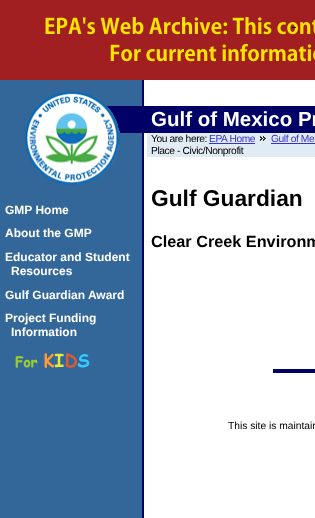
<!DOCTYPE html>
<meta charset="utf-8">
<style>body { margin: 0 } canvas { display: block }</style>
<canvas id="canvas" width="315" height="518"></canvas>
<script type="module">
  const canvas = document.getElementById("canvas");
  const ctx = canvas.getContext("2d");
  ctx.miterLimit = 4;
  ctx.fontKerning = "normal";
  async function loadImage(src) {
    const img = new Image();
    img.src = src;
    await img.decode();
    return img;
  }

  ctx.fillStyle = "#ffffff";
  ctx.fillRect(0, 0, 315, 518);
  ctx.drawImage(await loadImage("img1.png"), 0, 80, 144, 438);
  ctx.fillStyle = "#a11f20";
  ctx.fillRect(0, 0, 315, 80);
  ctx.drawImage(await loadImage("img2.png"), 45, 17, 270, 45);
  ctx.fillStyle = "#000066";
  ctx.fillRect(107, 106, 208, 27);
  ctx.drawImage(await loadImage("img3.png"), 25, 92, 95, 93);
  ctx.font = "bold 20.5px Liberation Sans";
  ctx.fillStyle = "#ffffff";
  ctx.fillText("Gulf of Mexico Pr", 151, 126);
  ctx.fillStyle = "#e1ebf4";
  ctx.fillRect(147, 133, 168, 24);
  ctx.letterSpacing = "-0.4px";
  ctx.font = "10.25px Liberation Sans";
  ctx.fillStyle = "#000000";
  ctx.fillText("You are here:", 151, 142);
  ctx.fillStyle = "#3333cc";
  ctx.fillText("EPA Home", 209, 142);
  ctx.fillRect(209, 143, 46, 1);
  ctx.drawImage(await loadImage("img4.png"), 260, 136, 6, 5);
  ctx.fillText("Gulf of Me", 271, 142);
  ctx.fillRect(271, 143, 44, 1);
  ctx.fillStyle = "#000000";
  ctx.fillText("Place - Civic/Nonprofit", 151, 154);
  ctx.letterSpacing = "0px";
  ctx.font = "bold 12px Liberation Sans";
  ctx.fillStyle = "#ffffff";
  ctx.fillText("GMP Home", 5, 214);
  ctx.fillText("About the GMP", 5, 237);
  ctx.fillText("Educator and Student", 5, 261);
  ctx.fillText("Resources", 11, 275);
  ctx.fillText("Gulf Guardian Award", 5, 299);
  ctx.fillText("Project Funding", 5, 322);
  ctx.fillText("Information", 11, 336);
  ctx.drawImage(await loadImage("img5.png"), 15, 353, 75, 15);
  ctx.font = "bold 22.75px Liberation Sans";
  ctx.fillStyle = "#000000";
  ctx.fillText("Gulf Guardian", 151, 206);
  ctx.font = "bold 16.25px Liberation Sans";
  ctx.fillText("Clear Creek Environm", 151, 247);
  ctx.fillStyle = "#000066";
  ctx.fillRect(292, 27, 4, 1);
  ctx.fillRect(273, 369, 42, 4);
  ctx.font = "10.25px Liberation Sans";
  ctx.fillStyle = "#000000";
  ctx.fillText("This site is maintain", 228, 429);
</script>
